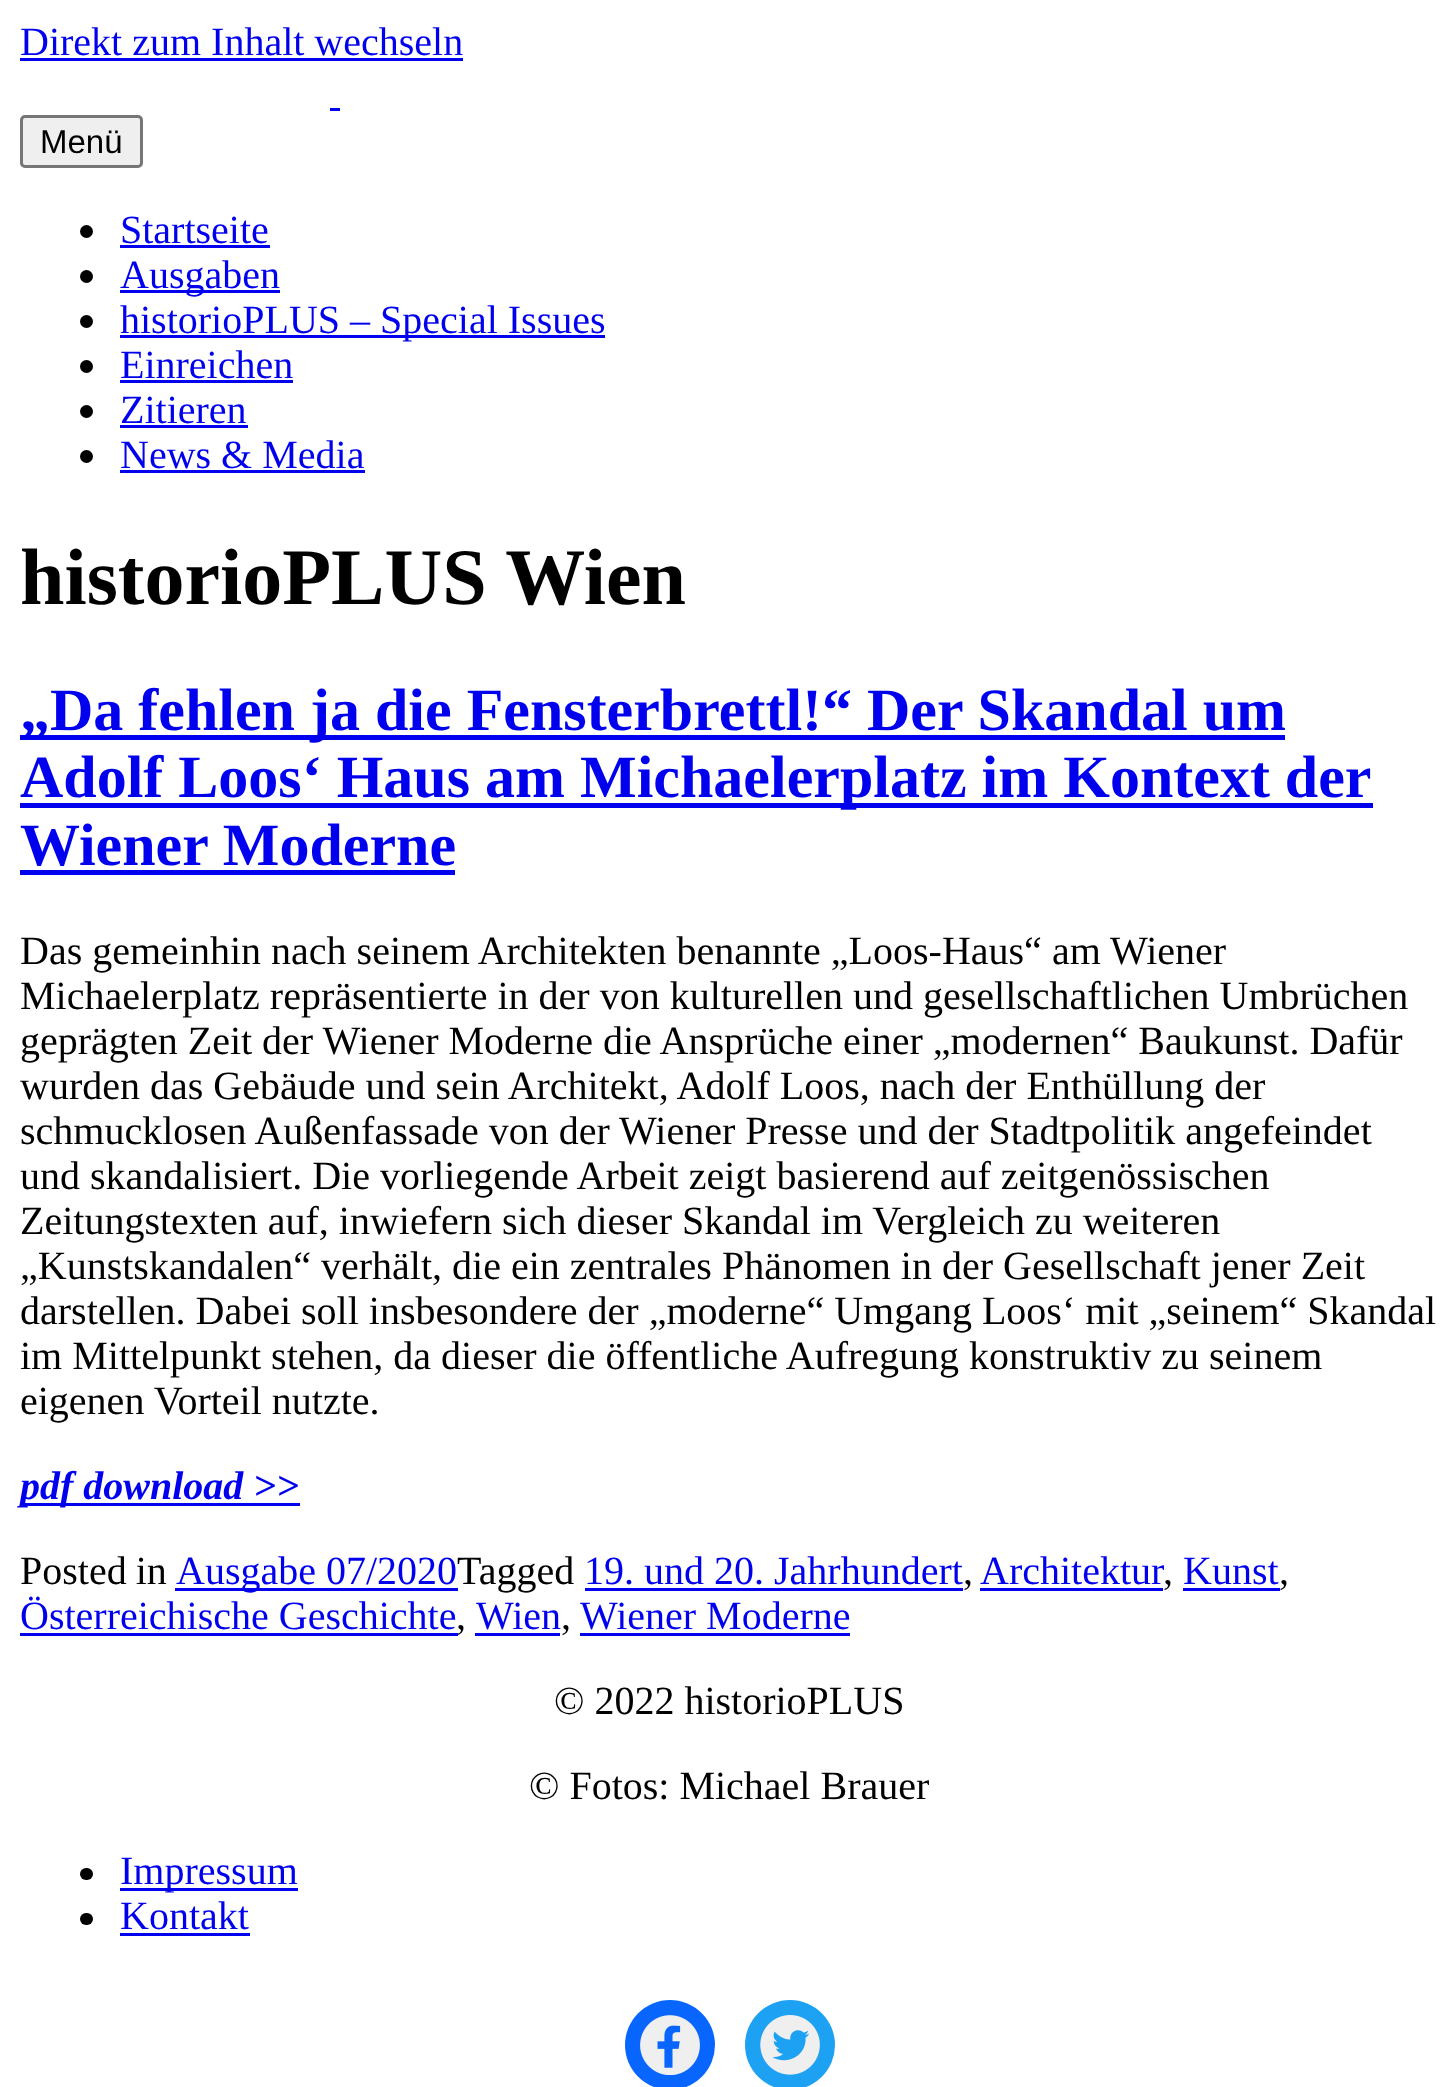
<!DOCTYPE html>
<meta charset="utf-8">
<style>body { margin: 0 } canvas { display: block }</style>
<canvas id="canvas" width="1456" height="2087"></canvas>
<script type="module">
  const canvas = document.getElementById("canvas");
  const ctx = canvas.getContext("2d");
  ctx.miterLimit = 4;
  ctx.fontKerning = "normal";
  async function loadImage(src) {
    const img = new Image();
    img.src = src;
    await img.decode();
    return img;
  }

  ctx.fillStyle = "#ffffff";
  ctx.fillRect(0, 0, 1456, 2087);
  ctx.font = "40px Liberation Serif";
  ctx.fillStyle = "#0000ee";
  ctx.fillText("Direkt zum Inhalt wechseln", 20, 55);
  ctx.fillRect(20, 58, 443, 3);
  ctx.fillRect(330, 108, 10, 3);
  ctx.fillStyle = "#efefef";
  ctx.beginPath();
  ctx.roundRect(21.5, 116.5, 120, 50, 3.5);
  ctx.fill();
  ctx.strokeStyle = "#767676";
  ctx.lineWidth = 3;
  ctx.stroke();
  ctx.font = "33px Liberation Sans";
  ctx.fillStyle = "#000000";
  ctx.fillText("Menü", 40, 153);
  ctx.beginPath();
  ctx.arc(86.5, 231.5, 6.5, 0, Math.PI * 2);
  ctx.fill();
  ctx.font = "40px Liberation Serif";
  ctx.fillStyle = "#0000ee";
  ctx.fillText("Startseite", 120, 243);
  ctx.fillRect(120, 245, 150, 3);
  ctx.fillStyle = "#000000";
  ctx.beginPath();
  ctx.arc(86.5, 276.5, 6.5, 0, Math.PI * 2);
  ctx.fill();
  ctx.fillStyle = "#0000ee";
  ctx.fillRect(120, 290, 160, 3);
  ctx.fillText("Ausgaben", 120, 288);
  ctx.fillStyle = "#000000";
  ctx.beginPath();
  ctx.arc(86.5, 321.5, 6.5, 0, Math.PI * 2);
  ctx.fill();
  ctx.fillStyle = "#0000ee";
  ctx.fillRect(120, 335, 485, 3);
  ctx.fillText("historioPLUS – Special Issues", 120, 333);
  ctx.fillStyle = "#000000";
  ctx.beginPath();
  ctx.arc(86.5, 366.5, 6.5, 0, Math.PI * 2);
  ctx.fill();
  ctx.fillStyle = "#0000ee";
  ctx.fillText("Einreichen", 120, 378);
  ctx.fillRect(120, 380, 173, 3);
  ctx.fillStyle = "#000000";
  ctx.beginPath();
  ctx.arc(86.5, 411.5, 6.5, 0, Math.PI * 2);
  ctx.fill();
  ctx.fillStyle = "#0000ee";
  ctx.fillText("Zitieren", 120, 423);
  ctx.fillRect(120, 425, 128, 3);
  ctx.fillStyle = "#000000";
  ctx.beginPath();
  ctx.arc(86.5, 456.5, 6.5, 0, Math.PI * 2);
  ctx.fill();
  ctx.fillStyle = "#0000ee";
  ctx.fillText("News & Media", 120, 468);
  ctx.fillRect(120, 470, 245, 3);
  ctx.font = "bold 80px Liberation Serif";
  ctx.fillStyle = "#000000";
  ctx.fillText("historioPLUS Wien", 20, 604);
  ctx.fillStyle = "#0000ee";
  ctx.fillRect(20, 735, 1265, 5);
  ctx.font = "bold 60px Liberation Serif";
  ctx.fillText("„Da fehlen ja die Fensterbrettl!“ Der Skandal um", 20, 730);
  ctx.fillRect(20, 803, 1353, 5);
  ctx.fillText("Adolf Loos‘ Haus am Michaelerplatz im Kontext der", 20, 797);
  ctx.fillText("Wiener Moderne", 20, 865);
  ctx.fillRect(20, 870, 435, 5);
  ctx.font = "40px Liberation Serif";
  ctx.fillStyle = "#000000";
  ctx.fillText("Das gemeinhin nach seinem Architekten benannte „Loos-Haus“ am Wiener", 20, 964);
  ctx.fillText("Michaelerplatz repräsentierte in der von kulturellen und gesellschaftlichen Umbrüchen", 20, 1009);
  ctx.fillText("geprägten Zeit der Wiener Moderne die Ansprüche einer „modernen“ Baukunst. Dafür", 20, 1054);
  ctx.fillText("wurden das Gebäude und sein Architekt, Adolf Loos, nach der Enthüllung der", 20, 1099);
  ctx.fillText("schmucklosen Außenfassade von der Wiener Presse und der Stadtpolitik angefeindet", 20, 1144);
  ctx.fillText("und skandalisiert. Die vorliegende Arbeit zeigt basierend auf zeitgenössischen", 20, 1189);
  ctx.fillText("Zeitungstexten auf, inwiefern sich dieser Skandal im Vergleich zu weiteren", 20, 1234);
  ctx.fillText("„Kunstskandalen“ verhält, die ein zentrales Phänomen in der Gesellschaft jener Zeit", 20, 1279);
  ctx.fillText("darstellen. Dabei soll insbesondere der „moderne“ Umgang Loos‘ mit „seinem“ Skandal", 20, 1324);
  ctx.fillText("im Mittelpunkt stehen, da dieser die öffentliche Aufregung konstruktiv zu seinem", 20, 1369);
  ctx.fillText("eigenen Vorteil nutzte.", 20, 1414);
  ctx.fillStyle = "#0000ee";
  ctx.fillRect(20, 1503, 280, 3);
  ctx.font = "italic bold 40px Liberation Serif";
  ctx.fillText("pdf download >>", 20, 1499);
  ctx.wordSpacing = "-1px";
  ctx.font = "40px Liberation Serif";
  ctx.fillStyle = "#000000";
  ctx.fillText("Posted in", 20, 1584);
  ctx.fillStyle = "#0000ee";
  ctx.fillRect(175, 1588, 283, 3);
  ctx.wordSpacing = "0px";
  ctx.fillText("Ausgabe 07/2020", 176, 1584);
  ctx.fillStyle = "#000000";
  ctx.fillText("Tagged", 457, 1584);
  ctx.fillStyle = "#0000ee";
  ctx.fillText("19. und 20. Jahrhundert", 584, 1584);
  ctx.fillStyle = "#000000";
  ctx.fillText(",", 963, 1584);
  ctx.fillStyle = "#0000ee";
  ctx.fillRect(585, 1588, 378, 3);
  ctx.fillText("Architektur", 980, 1584);
  ctx.fillStyle = "#000000";
  ctx.fillText(",", 1163, 1584);
  ctx.fillStyle = "#0000ee";
  ctx.fillRect(980, 1588, 183, 3);
  ctx.fillText("Kunst", 1183, 1584);
  ctx.fillStyle = "#000000";
  ctx.fillText(",", 1279, 1584);
  ctx.fillStyle = "#0000ee";
  ctx.fillRect(1183, 1588, 97, 3);
  ctx.fillText("Österreichische Geschichte", 20, 1629);
  ctx.fillStyle = "#000000";
  ctx.fillText(",", 456, 1629);
  ctx.fillStyle = "#0000ee";
  ctx.fillRect(20, 1633, 438, 3);
  ctx.fillText("Wien", 476, 1629);
  ctx.fillStyle = "#000000";
  ctx.fillText(",", 561, 1629);
  ctx.fillStyle = "#0000ee";
  ctx.fillRect(475, 1633, 85, 3);
  ctx.fillRect(580, 1633, 270, 3);
  ctx.fillText("Wiener Moderne", 580, 1629);
  ctx.fillStyle = "#000000";
  ctx.fillText("© 2022 historioPLUS", 554, 1714);
  ctx.fillText("© Fotos: Michael Brauer", 529, 1799);
  ctx.beginPath();
  ctx.roundRect(80, 1868, 13, 12, 6);
  ctx.fill();
  ctx.fillStyle = "#0000ee";
  ctx.fillRect(120, 1888, 178, 3);
  ctx.fillText("Impressum", 120, 1884);
  ctx.fillStyle = "#000000";
  ctx.beginPath();
  ctx.roundRect(80, 1913, 13, 12, 6);
  ctx.fill();
  ctx.fillStyle = "#0000ee";
  ctx.fillText("Kontakt", 120, 1929);
  ctx.fillRect(120, 1933, 130, 3);
  ctx.fillStyle = "#0866ff";
  ctx.beginPath();
  ctx.arc(670, 2045, 45, 0, Math.PI * 2);
  ctx.fill();
  ctx.drawImage(await loadImage("img1.png"), 640, 2015, 60, 60);
  ctx.fillStyle = "#1da1f2";
  ctx.beginPath();
  ctx.arc(790, 2045, 45, 0, Math.PI * 2);
  ctx.fill();
  ctx.drawImage(await loadImage("img2.png"), 760, 2015, 60, 60);
</script>
